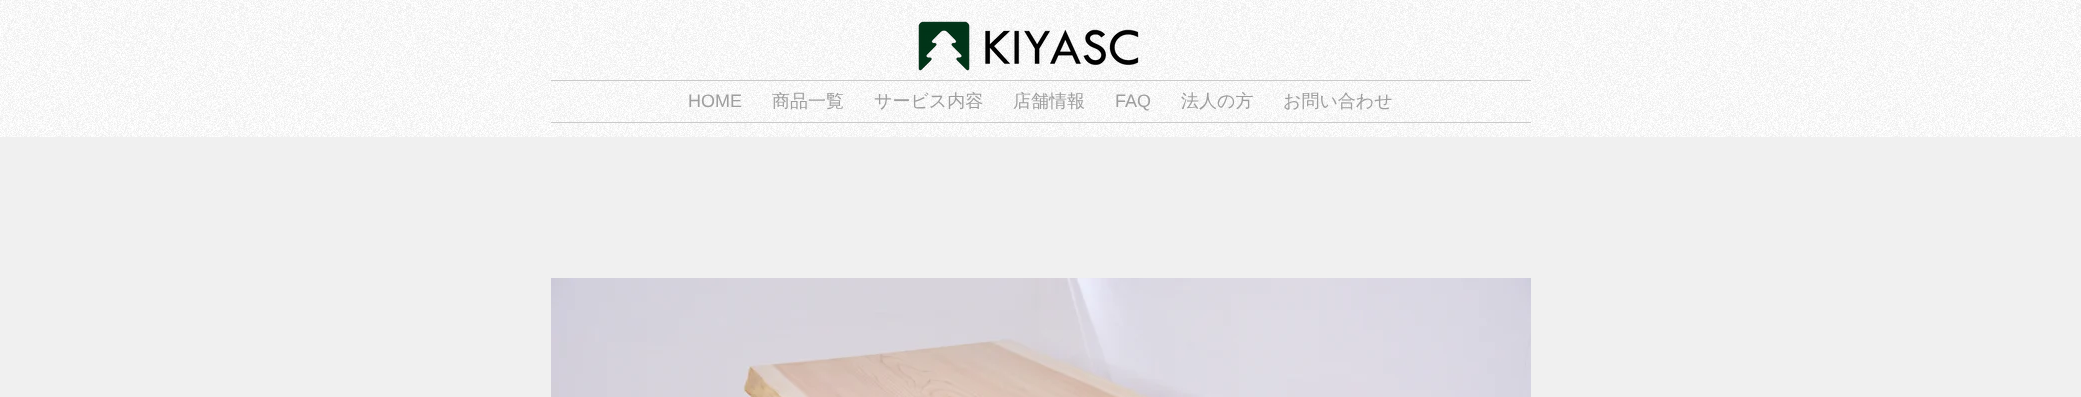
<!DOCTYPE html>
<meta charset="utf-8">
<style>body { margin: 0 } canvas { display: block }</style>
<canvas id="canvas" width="2081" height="397"></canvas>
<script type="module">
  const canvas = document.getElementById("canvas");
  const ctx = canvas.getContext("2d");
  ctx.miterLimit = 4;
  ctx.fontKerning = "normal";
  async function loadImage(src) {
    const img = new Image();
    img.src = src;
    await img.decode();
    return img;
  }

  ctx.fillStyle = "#f0f0f0";
  ctx.fillRect(0, 0, 2081, 397);
  ctx.fillStyle = "#ffffff";
  ctx.fillRect(0, 0, 2081, 137);
  ctx.drawImage(await loadImage("img1.png"), 0, 0, 2081, 137);
  ctx.drawImage(await loadImage("img2.png"), 918, 21, 221, 50);
  ctx.fillStyle = "#cacaca";
  ctx.fillRect(551, 80, 980, 1);
  ctx.fillRect(551, 122, 980, 1);
  ctx.font = "18px Liberation Sans";
  ctx.fillStyle = "#9e9e9e";
  ctx.fillText("HOME", 688, 107);
  ctx.font = "500 18px WenQuanYi Zen Hei";
  ctx.fillText("商品一覧", 772, 107);
  ctx.fillText("サービス内容", 874, 107);
  ctx.fillText("店舗情報", 1013, 107);
  ctx.font = "18px Liberation Sans";
  ctx.fillText("FAQ", 1115, 107);
  ctx.font = "500 18px WenQuanYi Zen Hei";
  ctx.fillText("法人の方", 1181, 107);
  ctx.fillText("お問い合わせ", 1283, 107);
  ctx.drawImage(await loadImage("img3.png"), 551, 278, 980, 119);
</script>
